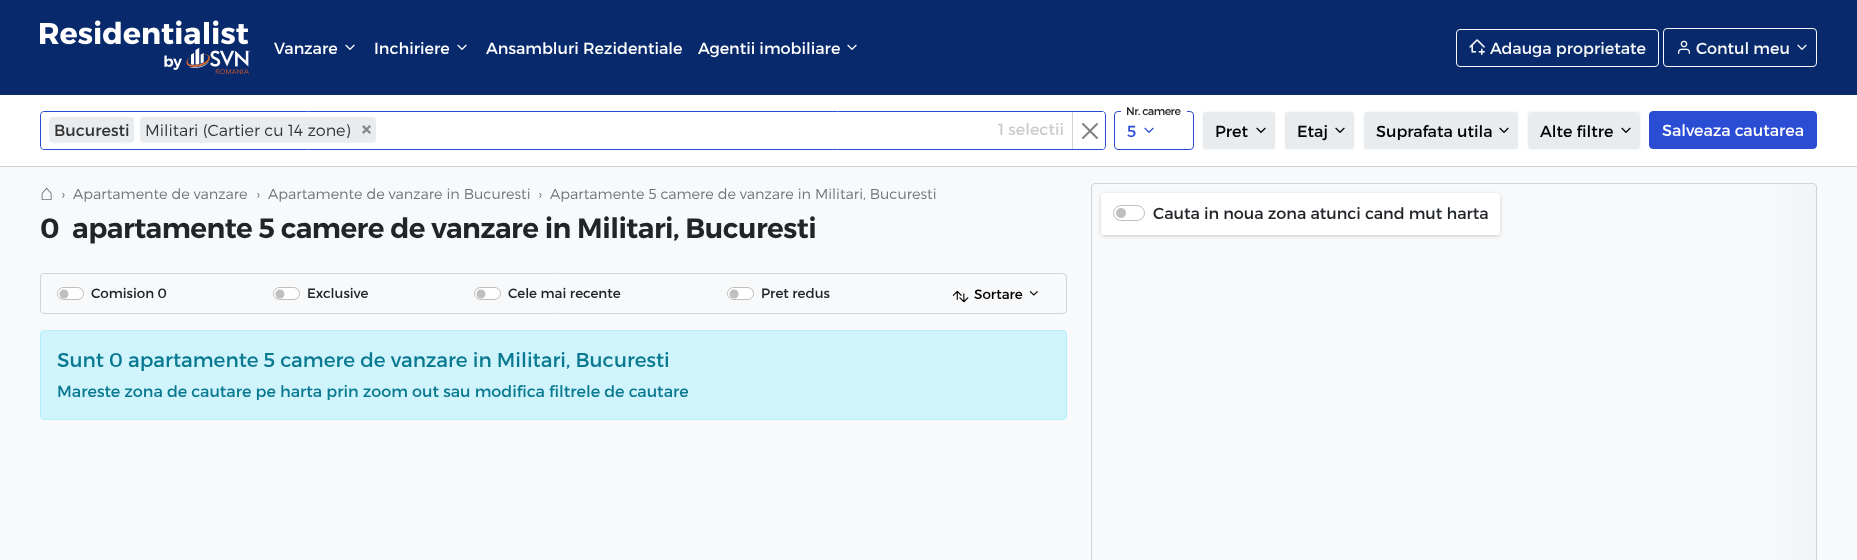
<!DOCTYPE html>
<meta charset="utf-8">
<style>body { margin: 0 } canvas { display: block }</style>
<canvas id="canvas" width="1857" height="560"></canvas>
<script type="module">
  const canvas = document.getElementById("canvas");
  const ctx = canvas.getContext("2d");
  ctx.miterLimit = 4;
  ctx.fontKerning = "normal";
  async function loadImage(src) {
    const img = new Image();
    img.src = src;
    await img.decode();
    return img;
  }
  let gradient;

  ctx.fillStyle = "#ffffff";
  ctx.fillRect(0, 0, 1857, 560);
  ctx.fillStyle = "#08296b";
  ctx.fillRect(0, 0, 1857, 95);
  ctx.drawImage(await loadImage("img1.png"), 40, 20, 210, 54);
  ctx.font = "16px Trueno";
  ctx.fillStyle = "#ffffff";
  ctx.fillText("Vanzare", 274, 54);
  ctx.drawImage(await loadImage("img2.png"), 345, 44, 10, 6);
  ctx.fillText("Inchiriere", 374, 54);
  ctx.drawImage(await loadImage("img2.png"), 457, 44, 10, 6);
  ctx.fillText("Ansambluri Rezidentiale", 486, 54);
  ctx.fillText("Agentii imobiliare", 698, 54);
  ctx.drawImage(await loadImage("img2.png"), 847, 44, 10, 6);
  ctx.beginPath();
  ctx.roundRect(1456.5, 29.5, 202, 37, 3.5);
  ctx.strokeStyle = "#f8f9fa";
  ctx.stroke();
  ctx.drawImage(await loadImage("img3.png"), 1469, 39, 16, 16);
  ctx.fillStyle = "#f8f9fa";
  ctx.fillText("Adauga proprietate", 1490, 54);
  ctx.beginPath();
  ctx.roundRect(1663.5, 28.5, 153, 38, 3.5);
  ctx.stroke();
  ctx.drawImage(await loadImage("img4.png"), 1678, 40, 12, 14);
  ctx.fillText("Contul meu", 1696, 54);
  ctx.drawImage(await loadImage("img5.png"), 1797, 44, 10, 6);
  ctx.fillStyle = "#ced4da";
  ctx.fillRect(0, 166, 1857, 1);
  ctx.beginPath();
  ctx.roundRect(40.5, 111.5, 1065, 38, 3.5);
  ctx.strokeStyle = "#2b4dd4";
  ctx.stroke();
  ctx.fillStyle = "#ffffff";
  ctx.beginPath();
  ctx.roundRect(41, 112, 1064, 37, 4);
  ctx.fill();
  ctx.fillStyle = "#f2f2f2";
  ctx.beginPath();
  ctx.moveTo(49, 139);
  ctx.bezierCurveTo(49, 146, 61, 143, 65, 143);
  ctx.lineTo(118, 143);
  ctx.bezierCurveTo(122, 143, 134, 146, 134, 139);
  ctx.bezierCurveTo(134, 141, 133, 142, 131, 142);
  ctx.lineTo(52, 142);
  ctx.bezierCurveTo(50, 142, 49, 141, 49, 139);
  ctx.closePath();
  ctx.fill();
  ctx.fillStyle = "#e9ecef";
  ctx.beginPath();
  ctx.roundRect(49, 117, 85, 25, 3);
  ctx.fill();
  ctx.fillStyle = "#333333";
  ctx.fillText("Bucuresti", 54, 136);
  ctx.fillStyle = "#f2f2f2";
  ctx.beginPath();
  ctx.moveTo(140, 139);
  ctx.bezierCurveTo(140, 141, 141, 143, 143, 143);
  ctx.lineTo(373, 143);
  ctx.bezierCurveTo(375, 143, 376, 141, 376, 139);
  ctx.bezierCurveTo(376, 141, 375, 142, 373, 142);
  ctx.lineTo(143, 142);
  ctx.bezierCurveTo(141, 142, 140, 141, 140, 139);
  ctx.closePath();
  ctx.fill();
  ctx.fillStyle = "#e9ecef";
  ctx.beginPath();
  ctx.roundRect(140, 117, 236, 25, 3);
  ctx.fill();
  ctx.font = "300 16px Trueno";
  ctx.fillStyle = "#333333";
  ctx.fillText("Militari (Cartier cu 14 zone)", 145, 136);
  ctx.drawImage(await loadImage("img6.png"), 362, 125, 9, 9);
  ctx.font = "16px Trueno";
  ctx.fillStyle = "#cccccc";
  ctx.fillText("1 selectii", 998, 135);
  ctx.fillStyle = "#ced4da";
  ctx.fillRect(1072, 112, 1, 37);
  ctx.drawImage(await loadImage("img7.png"), 1082, 123, 16, 16);
  gradient = ctx.createLinearGradient(904, 131, 1104, 131);
  gradient.addColorStop(0, "rgba(255, 255, 255, 0)");
  gradient.addColorStop(0.4, "#ffffff");
  ctx.fillStyle = gradient;
  ctx.fillRect(1102, 112, 2, 37);
  ctx.beginPath();
  ctx.roundRect(1114.5, 111.5, 79, 38, 3.5);
  ctx.stroke();
  ctx.fillStyle = "#ffffff";
  ctx.fillRect(1121, 111, 66, 1);
  ctx.letterSpacing = "-0.5px";
  ctx.font = "11px Trueno";
  ctx.fillStyle = "#212529";
  ctx.fillText("Nr. camere", 1126, 115);
  ctx.letterSpacing = "0px";
  ctx.font = "16px Trueno";
  ctx.fillStyle = "#2b4dd4";
  ctx.fillText("5", 1127, 137);
  ctx.drawImage(await loadImage("img8.png"), 1144, 127, 10, 6);
  ctx.fillStyle = "#e9ecef";
  ctx.beginPath();
  ctx.roundRect(1202.5, 111.5, 73, 38, 3.5);
  ctx.fill();
  ctx.strokeStyle = "#f8f9fa";
  ctx.stroke();
  ctx.fillStyle = "#000000";
  ctx.fillText("Pret", 1215, 137);
  ctx.drawImage(await loadImage("img9.png"), 1256, 127, 10, 6);
  ctx.fillStyle = "#e9ecef";
  ctx.beginPath();
  ctx.roundRect(1284.5, 111.5, 70, 38, 3.5);
  ctx.fill();
  ctx.stroke();
  ctx.fillStyle = "#000000";
  ctx.fillText("Etaj", 1297, 137);
  ctx.drawImage(await loadImage("img9.png"), 1335, 127, 10, 6);
  ctx.fillStyle = "#e9ecef";
  ctx.beginPath();
  ctx.roundRect(1363.5, 111.5, 155, 38, 3.5);
  ctx.fill();
  ctx.stroke();
  ctx.fillStyle = "#000000";
  ctx.fillText("Suprafata utila", 1376, 137);
  ctx.drawImage(await loadImage("img9.png"), 1499, 127, 10, 6);
  ctx.fillStyle = "#e9ecef";
  ctx.beginPath();
  ctx.roundRect(1527.5, 111.5, 113, 38, 3.5);
  ctx.fill();
  ctx.stroke();
  ctx.fillStyle = "#000000";
  ctx.fillText("Alte filtre", 1540, 137);
  ctx.drawImage(await loadImage("img9.png"), 1621, 127, 10, 6);
  ctx.fillStyle = "#2b4dd4";
  ctx.beginPath();
  ctx.roundRect(1649.5, 111.5, 167, 37, 3.5);
  ctx.fill();
  ctx.strokeStyle = "#2b4dd4";
  ctx.stroke();
  ctx.fillStyle = "#ffffff";
  ctx.fillText("Salveaza cautarea", 1662, 136);
  ctx.fillStyle = "#f8f9fa";
  ctx.fillRect(0, 167, 1857, 393);
  ctx.font = "22px Liberation Sans";
  ctx.fillStyle = "#6c757d";
  ctx.fillText("⌂", 40, 200);
  ctx.font = "300 14.4px Trueno";
  ctx.fillText("›", 61, 199);
  ctx.fillText("Apartamente de vanzare", 73, 199);
  ctx.fillText("›", 256, 199);
  ctx.fillText("Apartamente de vanzare in Bucuresti", 268, 199);
  ctx.fillText("›", 538, 199);
  ctx.fillText("Apartamente 5 camere de vanzare in Militari, Bucuresti", 550, 199);
  ctx.letterSpacing = "-0.5px";
  ctx.font = "600 28px Trueno";
  ctx.fillStyle = "#212529";
  ctx.fillText("0", 40, 238);
  ctx.fillText("apartamente 5 camere de vanzare in Militari, Bucuresti", 72, 238);
  ctx.beginPath();
  ctx.roundRect(40.5, 273.5, 1026, 40, 3.5);
  ctx.strokeStyle = "#ced4da";
  ctx.stroke();
  ctx.fillStyle = "#ffffff";
  ctx.beginPath();
  ctx.roundRect(57, 287, 27, 13, 6.5);
  ctx.fill();
  ctx.fillStyle = "#bfbfbf";
  ctx.beginPath();
  ctx.arc(64, 294, 4.5, 0, Math.PI * 2);
  ctx.fill();
  ctx.beginPath();
  ctx.roundRect(57.5, 287.5, 26, 12, 6);
  ctx.strokeStyle = "rgba(0, 0, 0, 0.25)";
  ctx.stroke();
  ctx.letterSpacing = "0px";
  ctx.font = "13.5px Trueno";
  ctx.fillStyle = "#212529";
  ctx.fillText("Comision 0", 91, 298);
  ctx.fillStyle = "#ffffff";
  ctx.beginPath();
  ctx.roundRect(273, 287, 27, 13, 6.5);
  ctx.fill();
  ctx.fillStyle = "#bfbfbf";
  ctx.beginPath();
  ctx.arc(280, 294, 4.5, 0, Math.PI * 2);
  ctx.fill();
  ctx.beginPath();
  ctx.roundRect(273.5, 287.5, 26, 12, 6);
  ctx.stroke();
  ctx.fillStyle = "#212529";
  ctx.fillText("Exclusive", 307, 298);
  ctx.fillStyle = "#ffffff";
  ctx.beginPath();
  ctx.roundRect(474, 287, 27, 13, 6.5);
  ctx.fill();
  ctx.fillStyle = "#bfbfbf";
  ctx.beginPath();
  ctx.arc(481, 294, 4.5, 0, Math.PI * 2);
  ctx.fill();
  ctx.beginPath();
  ctx.roundRect(474.5, 287.5, 26, 12, 6);
  ctx.stroke();
  ctx.fillStyle = "#212529";
  ctx.fillText("Cele mai recente", 508, 298);
  ctx.fillStyle = "#ffffff";
  ctx.beginPath();
  ctx.roundRect(727, 287, 27, 13, 6.5);
  ctx.fill();
  ctx.fillStyle = "#bfbfbf";
  ctx.beginPath();
  ctx.arc(734, 294, 4.5, 0, Math.PI * 2);
  ctx.fill();
  ctx.beginPath();
  ctx.roundRect(727.5, 287.5, 26, 12, 6);
  ctx.stroke();
  ctx.fillStyle = "#212529";
  ctx.fillText("Pret redus", 761, 298);
  ctx.drawImage(await loadImage("img10.png"), 952, 290, 10, 10);
  ctx.drawImage(await loadImage("img11.png"), 959, 293, 10, 10);
  ctx.fillStyle = "#000000";
  ctx.fillText("Sortare", 974, 299);
  ctx.drawImage(await loadImage("img12.png"), 1029, 291, 9, 5);
  ctx.fillStyle = "#cff4fc";
  ctx.beginPath();
  ctx.roundRect(40.5, 330.5, 1026, 89, 3.5);
  ctx.fill();
  ctx.strokeStyle = "#b6effb";
  ctx.stroke();
  ctx.font = "20px Trueno";
  ctx.fillStyle = "#087990";
  ctx.fillText("Sunt 0 apartamente 5 camere de vanzare in Militari, Bucuresti", 57, 367);
  ctx.font = "16px Trueno";
  ctx.fillText("Mareste zona de cautare pe harta prin zoom out sau modifica filtrele de cautare", 57, 397);
  gradient = ctx.createLinearGradient(1742, 411, 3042, 411);
  gradient.addColorStop(0.02, "#f8f9fa");
  gradient.addColorStop(0.18, "#dae0e5");
  gradient.addColorStop(0.33, "#f8f9fa");
  ctx.fillStyle = gradient;
  ctx.beginPath();
  ctx.moveTo(1742, 183);
  ctx.lineTo(1813, 183);
  ctx.bezierCurveTo(1815, 183, 1817, 185, 1817, 187);
  ctx.lineTo(1817, 560);
  ctx.bezierCurveTo(1817, 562, 1815, 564, 1813, 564);
  ctx.lineTo(1742, 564);
  ctx.closePath();
  ctx.fill();
  ctx.beginPath();
  ctx.roundRect(1091.5, 183.5, 725, 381, 3.5);
  ctx.strokeStyle = "#ced4da";
  ctx.stroke();
  ctx.fillStyle = "rgba(0, 0, 0, 0.3)";
  ctx.filter = "blur(2px)";
  ctx.beginPath();
  ctx.roundRect(1102, 195, 397, 40, 2);
  ctx.fill();
  ctx.filter = "none";
  ctx.fillStyle = "#ffffff";
  ctx.beginPath();
  ctx.roundRect(1101, 193, 399, 42, 3);
  ctx.fill();
  ctx.fillStyle = "#bfbfbf";
  ctx.beginPath();
  ctx.arc(1121, 213, 5, 0, Math.PI * 2);
  ctx.fill();
  ctx.beginPath();
  ctx.roundRect(1113.5, 205.5, 31, 15, 7.5);
  ctx.strokeStyle = "#bfbfbf";
  ctx.stroke();
  ctx.fillStyle = "#212529";
  ctx.fillText("Cauta in noua zona atunci cand mut harta", 1153, 219);
</script>
